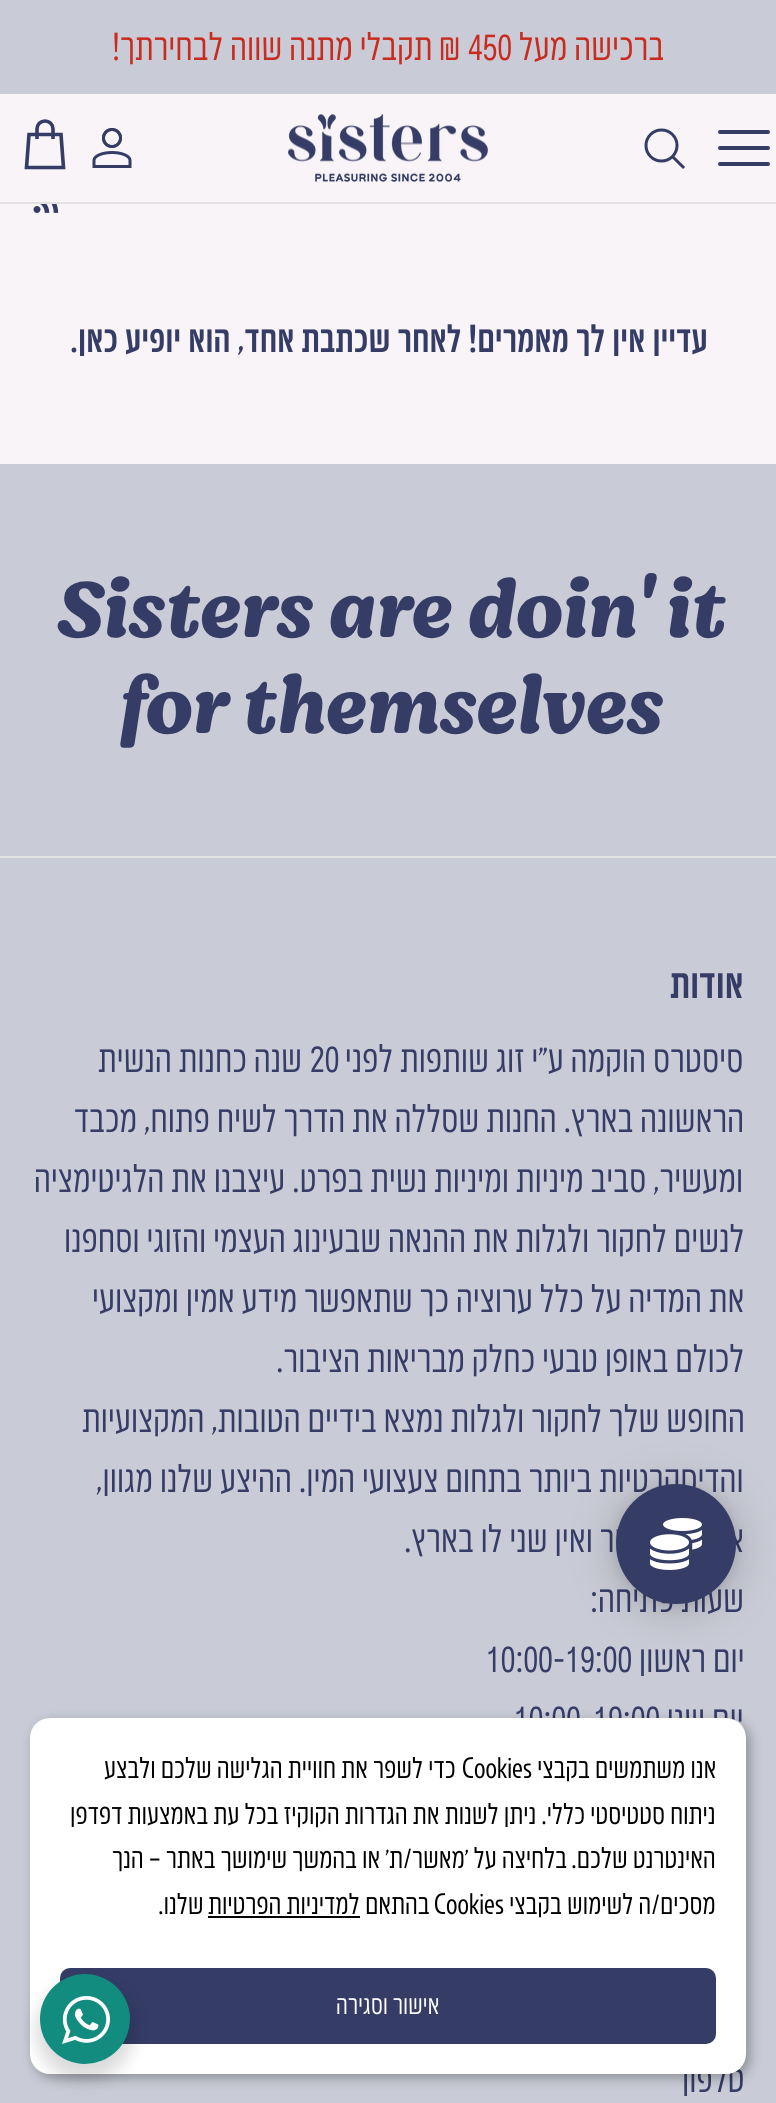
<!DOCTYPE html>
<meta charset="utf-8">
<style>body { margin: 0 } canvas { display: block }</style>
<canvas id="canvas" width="776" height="2103"></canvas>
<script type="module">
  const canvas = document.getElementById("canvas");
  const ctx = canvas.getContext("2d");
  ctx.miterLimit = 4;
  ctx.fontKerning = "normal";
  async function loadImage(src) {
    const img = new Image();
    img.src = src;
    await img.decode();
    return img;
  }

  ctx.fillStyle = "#f8f4f7";
  ctx.fillRect(0, 0, 776, 2103);
  ctx.fillStyle = "#c9cbd6";
  ctx.fillRect(0, 0, 776, 94);
  ctx.drawImage(await loadImage("img1.png"), 114, 32, 345, 33);
  ctx.drawImage(await loadImage("img2.png"), 468, 34, 43, 27);
  ctx.drawImage(await loadImage("img3.png"), 520, 32, 144, 30);
  ctx.fillStyle = "#e2e2e2";
  ctx.fillRect(0, 202, 776, 2);
  ctx.beginPath();
  ctx.moveTo(53, 139);
  ctx.lineTo(53, 129);
  ctx.bezierCurveTo(53, 124.5, 49.5, 121, 45, 121);
  ctx.bezierCurveTo(40.5, 121, 37, 124.5, 37, 129);
  ctx.lineTo(37, 139);
  ctx.moveTo(29, 134.5);
  ctx.lineTo(61, 134.5);
  ctx.lineTo(63.5, 167.5);
  ctx.lineTo(26.5, 167.5);
  ctx.closePath();
  ctx.strokeStyle = "#353c66";
  ctx.lineWidth = 3.6;
  ctx.stroke();
  ctx.drawImage(await loadImage("img4.png"), 92, 128, 40, 40);
  ctx.drawImage(await loadImage("img5.png"), 288, 114, 200, 68);
  ctx.beginPath();
  ctx.arc(661.5, 145.5, 15.5, 0, Math.PI * 2);
  ctx.lineWidth = 3;
  ctx.stroke();
  ctx.beginPath();
  ctx.moveTo(674, 158);
  ctx.lineTo(683, 167);
  ctx.lineCap = "square";
  ctx.stroke();
  ctx.beginPath();
  ctx.moveTo(720, 148);
  ctx.lineTo(768, 148);
  ctx.moveTo(720, 132);
  ctx.lineTo(768, 132);
  ctx.moveTo(720, 164);
  ctx.lineTo(768, 164);
  ctx.lineWidth = 4;
  ctx.lineCap = "round";
  ctx.lineJoin = "round";
  ctx.stroke();
  ctx.drawImage(await loadImage("img6.png"), 33, 204, 26, 9);
  ctx.drawImage(await loadImage("img7.png"), 71, 324, 635, 32);
  ctx.fillStyle = "#c9cbd6";
  ctx.fillRect(0, 464, 776, 392);
  ctx.font = "bold 80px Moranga";
  ctx.fillStyle = "#353c66";
  ctx.fillText("Sisters are doin' it", 54, 637);
  ctx.fillText("for themselves", 116, 733);
  ctx.fillStyle = "#c9cbd6";
  ctx.fillRect(0, 858, 776, 1245);
  ctx.fillStyle = "#e4e4e4";
  ctx.fillRect(0, 856, 776, 2);
  ctx.drawImage(await loadImage("img8.png"), 670, 973, 72, 25);
  ctx.drawImage(await loadImage("img9.png"), 98, 1049, 202, 24);
  ctx.drawImage(await loadImage("img10.png"), 311, 1046, 28, 27);
  ctx.drawImage(await loadImage("img11.png"), 346, 1044, 396, 33);
  ctx.drawImage(await loadImage("img12.png"), 75, 1104, 667, 33);
  ctx.drawImage(await loadImage("img13.png"), 35, 1164, 706, 31);
  ctx.drawImage(await loadImage("img14.png"), 66, 1224, 677, 33);
  ctx.drawImage(await loadImage("img15.png"), 94, 1284, 649, 33);
  ctx.drawImage(await loadImage("img16.png"), 277, 1344, 466, 33);
  ctx.drawImage(await loadImage("img17.png"), 82, 1404, 661, 33);
  ctx.drawImage(await loadImage("img18.png"), 96, 1464, 646, 32);
  ctx.drawImage(await loadImage("img19.png"), 405, 1524, 338, 33);
  ctx.drawImage(await loadImage("img20.png"), 592, 1589, 150, 25);
  ctx.drawImage(await loadImage("img21.png"), 488, 1646, 143, 27);
  ctx.drawImage(await loadImage("img22.png"), 641, 1649, 102, 27);
  ctx.drawImage(await loadImage("img23.png"), 516, 1706, 143, 12);
  ctx.drawImage(await loadImage("img24.png"), 668, 1709, 74, 13);
  ctx.drawImage(await loadImage("img25.png"), 684, 2069, 59, 27);
  ctx.fillStyle = "rgba(0, 0, 0, 0.2)";
  ctx.filter = "blur(24px)";
  ctx.beginPath();
  ctx.roundRect(616, 1488, 120, 120, 60);
  ctx.fill();
  ctx.filter = "none";
  ctx.fillStyle = "rgba(0, 0, 0, 0.1)";
  ctx.filter = "blur(6px)";
  ctx.beginPath();
  ctx.roundRect(616, 1486, 120, 120, 60);
  ctx.fill();
  ctx.filter = "none";
  ctx.fillStyle = "#353c66";
  ctx.beginPath();
  ctx.arc(676, 1544, 60, 0, Math.PI * 2);
  ctx.fill();
  ctx.drawImage(await loadImage("img26.png"), 650, 1518, 52, 52);
  ctx.fillStyle = "rgba(0, 0, 0, 0.15)";
  ctx.filter = "blur(6px)";
  ctx.beginPath();
  ctx.roundRect(34, 1722, 716, 356, 20);
  ctx.fill();
  ctx.filter = "none";
  ctx.filter = "blur(6px)";
  ctx.beginPath();
  ctx.roundRect(34, 1722, 716, 356, 20);
  ctx.fill();
  ctx.filter = "none";
  ctx.fillStyle = "#ffffff";
  ctx.beginPath();
  ctx.roundRect(30, 1718, 716, 356, 20);
  ctx.fill();
  ctx.drawImage(await loadImage("img27.png"), 104, 1757, 351, 23);
  ctx.drawImage(await loadImage("img28.png"), 463, 1757, 69, 22);
  ctx.drawImage(await loadImage("img29.png"), 538, 1760, 177, 22);
  ctx.drawImage(await loadImage("img30.png"), 71, 1803, 464, 25);
  ctx.drawImage(await loadImage("img31.png"), 542, 1803, 172, 22);
  ctx.drawImage(await loadImage("img32.png"), 112, 1847, 455, 25);
  ctx.drawImage(await loadImage("img33.png"), 572, 1847, 143, 22);
  ctx.drawImage(await loadImage("img34.png"), 159, 1893, 43, 22);
  ctx.drawImage(await loadImage("img35.png"), 208, 1893, 151, 22);
  ctx.drawImage(await loadImage("img36.png"), 366, 1897, 63, 17);
  ctx.drawImage(await loadImage("img28.png"), 435, 1893, 69, 22);
  ctx.drawImage(await loadImage("img37.png"), 510, 1893, 205, 25);
  ctx.fillStyle = "#000000";
  ctx.fillRect(208, 1916, 152, 2);
  ctx.fillStyle = "#353c66";
  ctx.beginPath();
  ctx.roundRect(60, 1968, 656, 76, 10);
  ctx.fill();
  ctx.drawImage(await loadImage("img38.png"), 337, 1998, 102, 17);
  ctx.fillStyle = "rgba(0, 0, 0, 0.14)";
  ctx.filter = "blur(8px)";
  ctx.beginPath();
  ctx.roundRect(36, 1982, 98, 98, 49);
  ctx.fill();
  ctx.filter = "none";
  ctx.fillStyle = "#128c7e";
  ctx.beginPath();
  ctx.arc(85, 2019, 45, 0, Math.PI * 2);
  ctx.fill();
  ctx.drawImage(await loadImage("img39.png"), 62, 1996, 48, 48);
</script>
